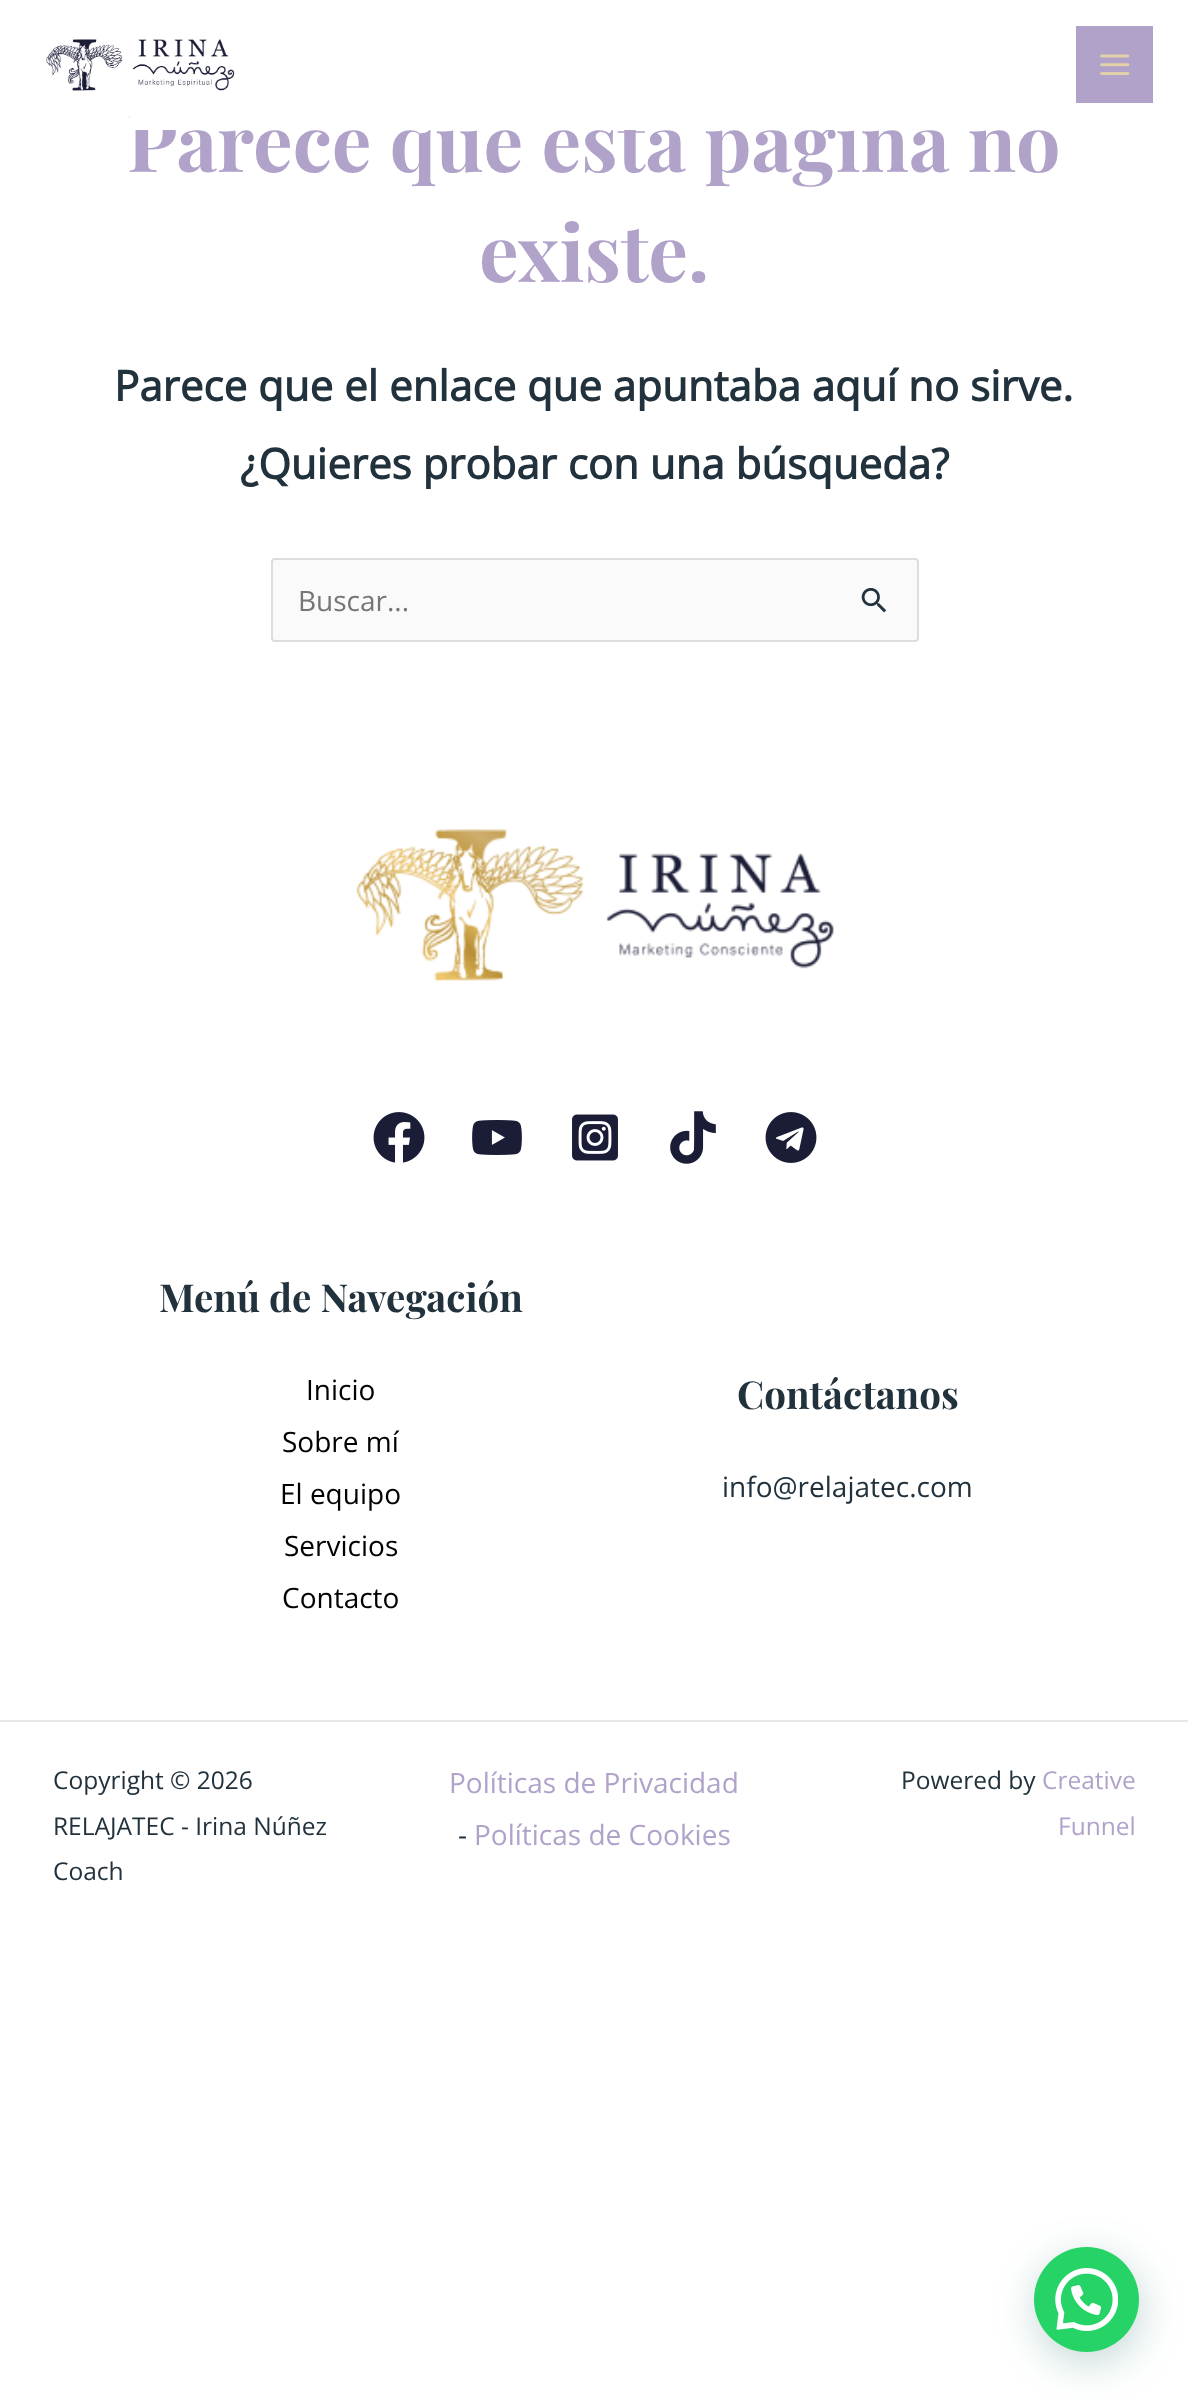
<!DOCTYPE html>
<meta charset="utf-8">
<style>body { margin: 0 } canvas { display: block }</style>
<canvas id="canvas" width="1188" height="2401"></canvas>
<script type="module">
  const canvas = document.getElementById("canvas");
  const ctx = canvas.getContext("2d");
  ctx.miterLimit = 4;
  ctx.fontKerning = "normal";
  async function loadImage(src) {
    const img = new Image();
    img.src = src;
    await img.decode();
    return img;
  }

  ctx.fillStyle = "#ffffff";
  ctx.fillRect(0, 0, 1188, 2401);
  ctx.font = "bold 78.75px Playfair Display";
  ctx.fillStyle = "#b1a2ca";
  ctx.fillText("Parece que esta página no", 127, 172);
  ctx.fillStyle = "#ffffff";
  ctx.fillRect(130, 106, 726, 24);
  ctx.drawImage(await loadImage("img1.png"), 46, 39, 189, 52);
  ctx.fillStyle = "#b1a2ca";
  ctx.fillRect(1076, 26, 77, 77);
  ctx.drawImage(await loadImage("img2.png"), 1100, 54, 30, 21);
  ctx.fillText("existe.", 479, 282);
  ctx.font = "bold 42px Open Sans";
  ctx.fillStyle = "#22323d";
  ctx.fillText("Parece que el enlace que apuntaba aquí no sirve.", 114, 401);
  ctx.fillText("¿Quieres probar con una búsqueda?", 240, 479);
  ctx.fillStyle = "#fafafa";
  ctx.beginPath();
  ctx.roundRect(272, 559, 646, 82, 3);
  ctx.fill();
  ctx.strokeStyle = "#dddddd";
  ctx.lineWidth = 2;
  ctx.stroke();
  ctx.font = "28px Open Sans";
  ctx.fillStyle = "#757575";
  ctx.fillText("Buscar...", 298, 611);
  ctx.drawImage(await loadImage("img3.png"), 861, 587, 26, 26);
  ctx.drawImage(await loadImage("img4.png"), 356, 829, 478, 153);
  ctx.drawImage(await loadImage("img5.png"), 373, 1112, 52, 51);
  ctx.drawImage(await loadImage("img6.png"), 472, 1120, 50, 35);
  ctx.drawImage(await loadImage("img7.png"), 572, 1114, 46, 47);
  ctx.drawImage(await loadImage("img8.png"), 670, 1111, 46, 53);
  ctx.drawImage(await loadImage("img9.png"), 765, 1112, 52, 51);
  ctx.font = "bold 38.5px Playfair Display";
  ctx.fillStyle = "#22323d";
  ctx.fillText("Menú de Navegación", 159, 1312);
  ctx.font = "28px Open Sans";
  ctx.fillStyle = "#000000";
  ctx.fillText("Inicio", 306, 1400);
  ctx.fillText("Sobre mí", 282, 1452);
  ctx.fillText("El equipo", 280, 1504);
  ctx.fillText("Servicios", 284, 1556);
  ctx.fillText("Contacto", 282, 1608);
  ctx.font = "bold 38.5px Playfair Display";
  ctx.fillStyle = "#22323d";
  ctx.fillText("Contáctanos", 737, 1409);
  ctx.font = "28px Open Sans";
  ctx.fillText("info@relajatec.com", 722, 1497);
  ctx.fillStyle = "#e7e7e7";
  ctx.fillRect(0, 1720, 1188, 2);
  ctx.font = "24.5px Open Sans";
  ctx.fillStyle = "#22323d";
  ctx.fillText("Copyright © 2026", 53, 1789);
  ctx.fillText("RELAJATEC - Irina Núñez", 53, 1835);
  ctx.fillText("Coach", 53, 1880);
  ctx.font = "28px Open Sans";
  ctx.fillStyle = "#b1a2ca";
  ctx.fillText("Políticas de Privacidad", 449, 1793);
  ctx.fillStyle = "#22323d";
  ctx.fillText("-", 458, 1845);
  ctx.fillStyle = "#b1a2ca";
  ctx.fillText("Políticas de Cookies", 474, 1845);
  ctx.font = "24.5px Open Sans";
  ctx.fillStyle = "#22323d";
  ctx.fillText("Powered by", 901, 1789);
  ctx.fillStyle = "#b1a2ca";
  ctx.fillText("Creative", 1042, 1789);
  ctx.fillText("Funnel", 1058, 1835);
  ctx.fillStyle = "rgba(7, 94, 84, 0.24)";
  ctx.filter = "blur(21px)";
  ctx.beginPath();
  ctx.roundRect(1036, 2258, 105, 105, 52.5);
  ctx.fill();
  ctx.filter = "none";
  ctx.fillStyle = "#25d366";
  ctx.beginPath();
  ctx.arc(1086.5, 2299.5, 52.5, 0, Math.PI * 2);
  ctx.fill();
  ctx.drawImage(await loadImage("img10.png"), 1055, 2268, 63, 63);
</script>
